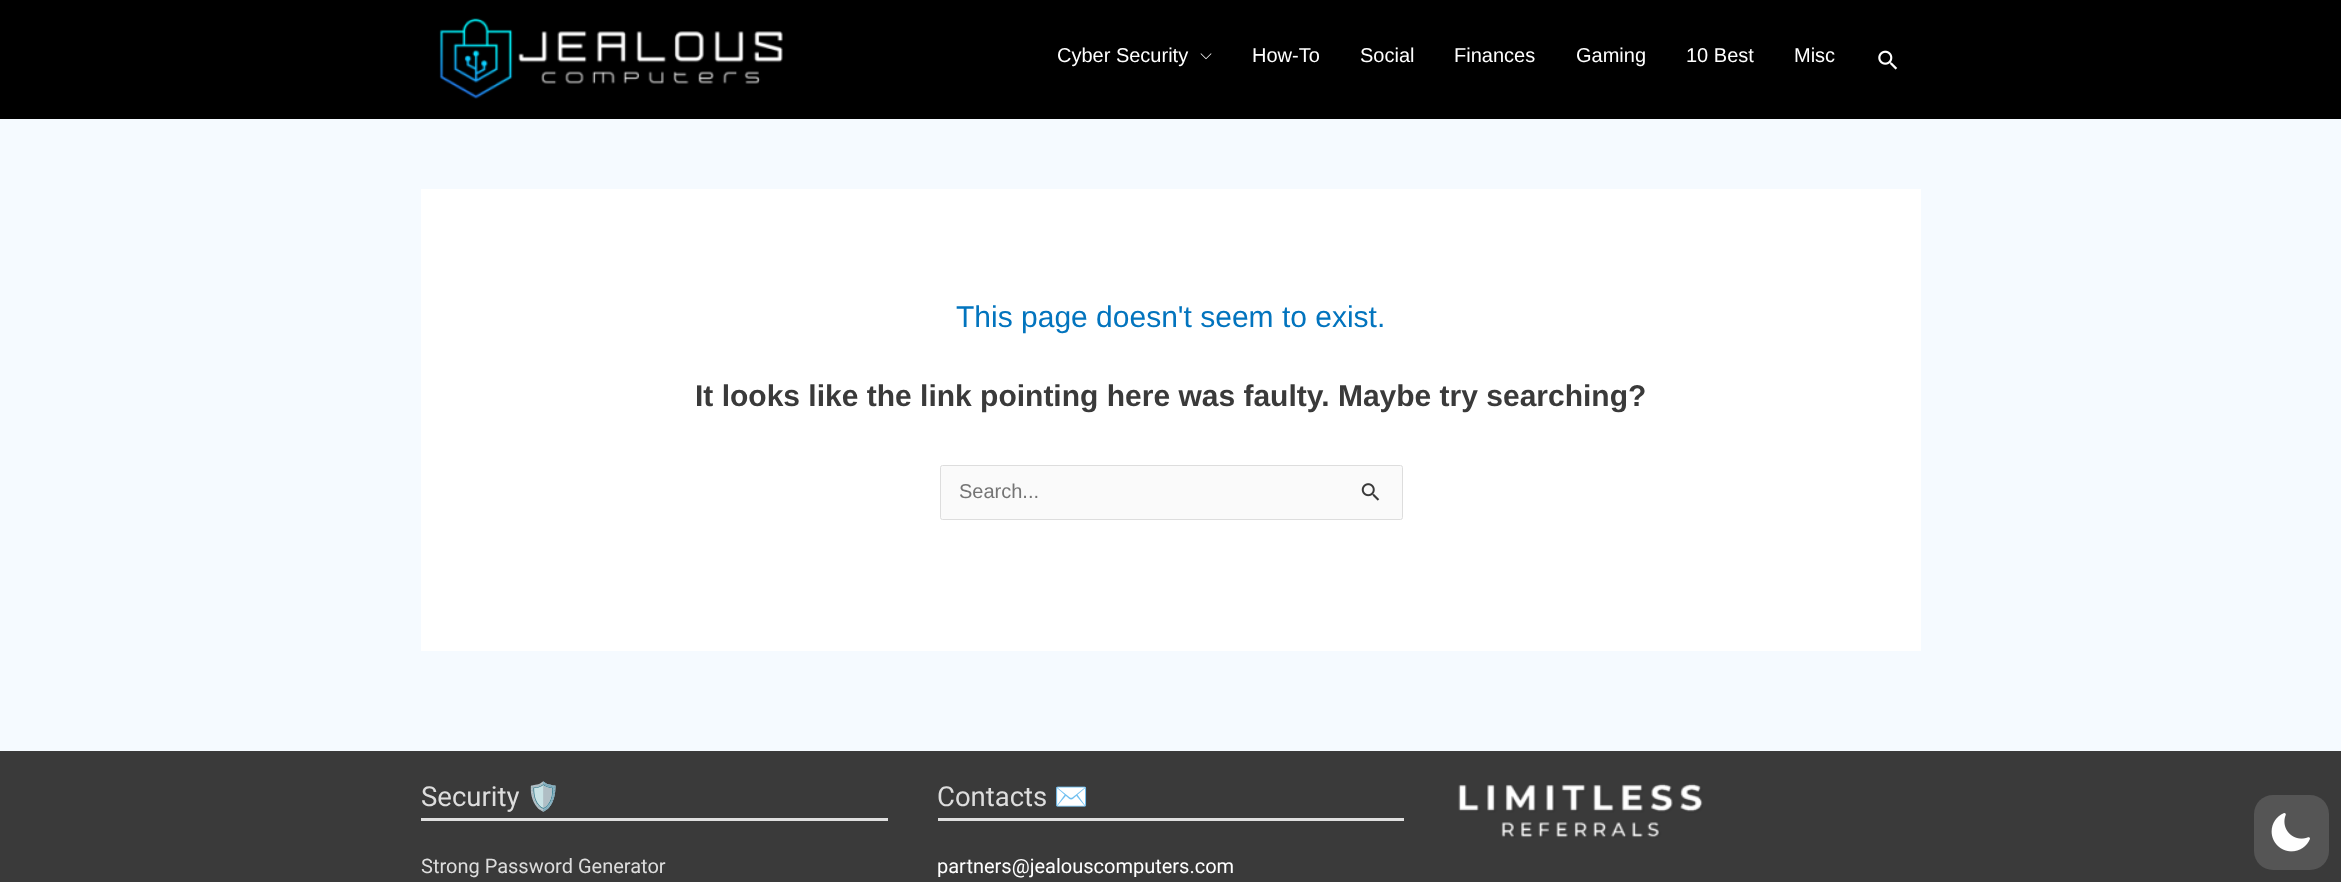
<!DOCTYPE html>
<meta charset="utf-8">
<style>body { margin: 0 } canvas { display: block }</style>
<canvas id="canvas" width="2341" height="882"></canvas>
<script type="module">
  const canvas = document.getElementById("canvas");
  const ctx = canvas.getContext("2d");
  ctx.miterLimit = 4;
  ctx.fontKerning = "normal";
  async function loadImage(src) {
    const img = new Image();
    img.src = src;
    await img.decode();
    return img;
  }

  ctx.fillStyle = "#f5faff";
  ctx.fillRect(0, 0, 2341, 882);
  ctx.fillStyle = "#000000";
  ctx.fillRect(0, 0, 2341, 119);
  ctx.drawImage(await loadImage("img1.png"), 439, 18, 344, 81);
  ctx.font = "20px Liberation Sans";
  ctx.fillStyle = "#ffffff";
  ctx.fillText("Cyber Security", 1057, 62);
  ctx.drawImage(await loadImage("img2.png"), 1200, 53, 12, 7);
  ctx.fillText("How-To", 1252, 62);
  ctx.fillText("Social", 1360, 62);
  ctx.fillText("Finances", 1454, 62);
  ctx.fillText("Gaming", 1576, 62);
  ctx.fillText("10 Best", 1686, 62);
  ctx.fillText("Misc", 1794, 62);
  ctx.drawImage(await loadImage("img3.png"), 1878, 50, 20, 20);
  ctx.fillRect(421, 189, 1500, 462);
  ctx.font = "30px Liberation Sans";
  ctx.fillStyle = "#0274be";
  ctx.fillText("This page doesn't seem to exist.", 956, 327);
  ctx.font = "bold 30px Liberation Sans";
  ctx.fillStyle = "#3a3a3a";
  ctx.fillText("It looks like the link pointing here was faulty. Maybe try searching?", 695, 406);
  ctx.fillStyle = "#fafafa";
  ctx.beginPath();
  ctx.roundRect(940.5, 465.5, 462, 54, 2);
  ctx.fill();
  ctx.strokeStyle = "#dddddd";
  ctx.stroke();
  ctx.font = "20px Liberation Sans";
  ctx.fillStyle = "#757575";
  ctx.fillText("Search...", 959, 498);
  ctx.drawImage(await loadImage("img4.png"), 1361, 483, 19, 18);
  ctx.fillStyle = "#3a3a3a";
  ctx.fillRect(0, 751, 2341, 131);
  ctx.fillStyle = "#dfdfdf";
  ctx.fillRect(421, 818, 467, 3);
  ctx.font = "27.5px Roboto";
  ctx.fillStyle = "#dddddd";
  ctx.fillText("Security", 421, 806);
  ctx.font = "27.5px Noto Color Emoji";
  ctx.fillText("🛡️", 526, 806);
  ctx.font = "20px Roboto";
  ctx.fillText("Strong Password Generator", 421, 873);
  ctx.fillStyle = "#dfdfdf";
  ctx.fillRect(938, 818, 466, 3);
  ctx.font = "27.5px Roboto";
  ctx.fillStyle = "#dddddd";
  ctx.fillText("Contacts", 937, 806);
  ctx.font = "27.5px Noto Color Emoji";
  ctx.fillText("✉️", 1054, 806);
  ctx.font = "20px Roboto";
  ctx.fillStyle = "#ffffff";
  ctx.fillText("partners@jealouscomputers.com", 937, 873);
  ctx.drawImage(await loadImage("img5.png"), 1458, 783, 245, 55);
  ctx.fillStyle = "#555555";
  ctx.beginPath();
  ctx.roundRect(2254, 795, 75, 75, 19);
  ctx.fill();
  ctx.drawImage(await loadImage("img6.png"), 2271, 813, 39, 39);
</script>
